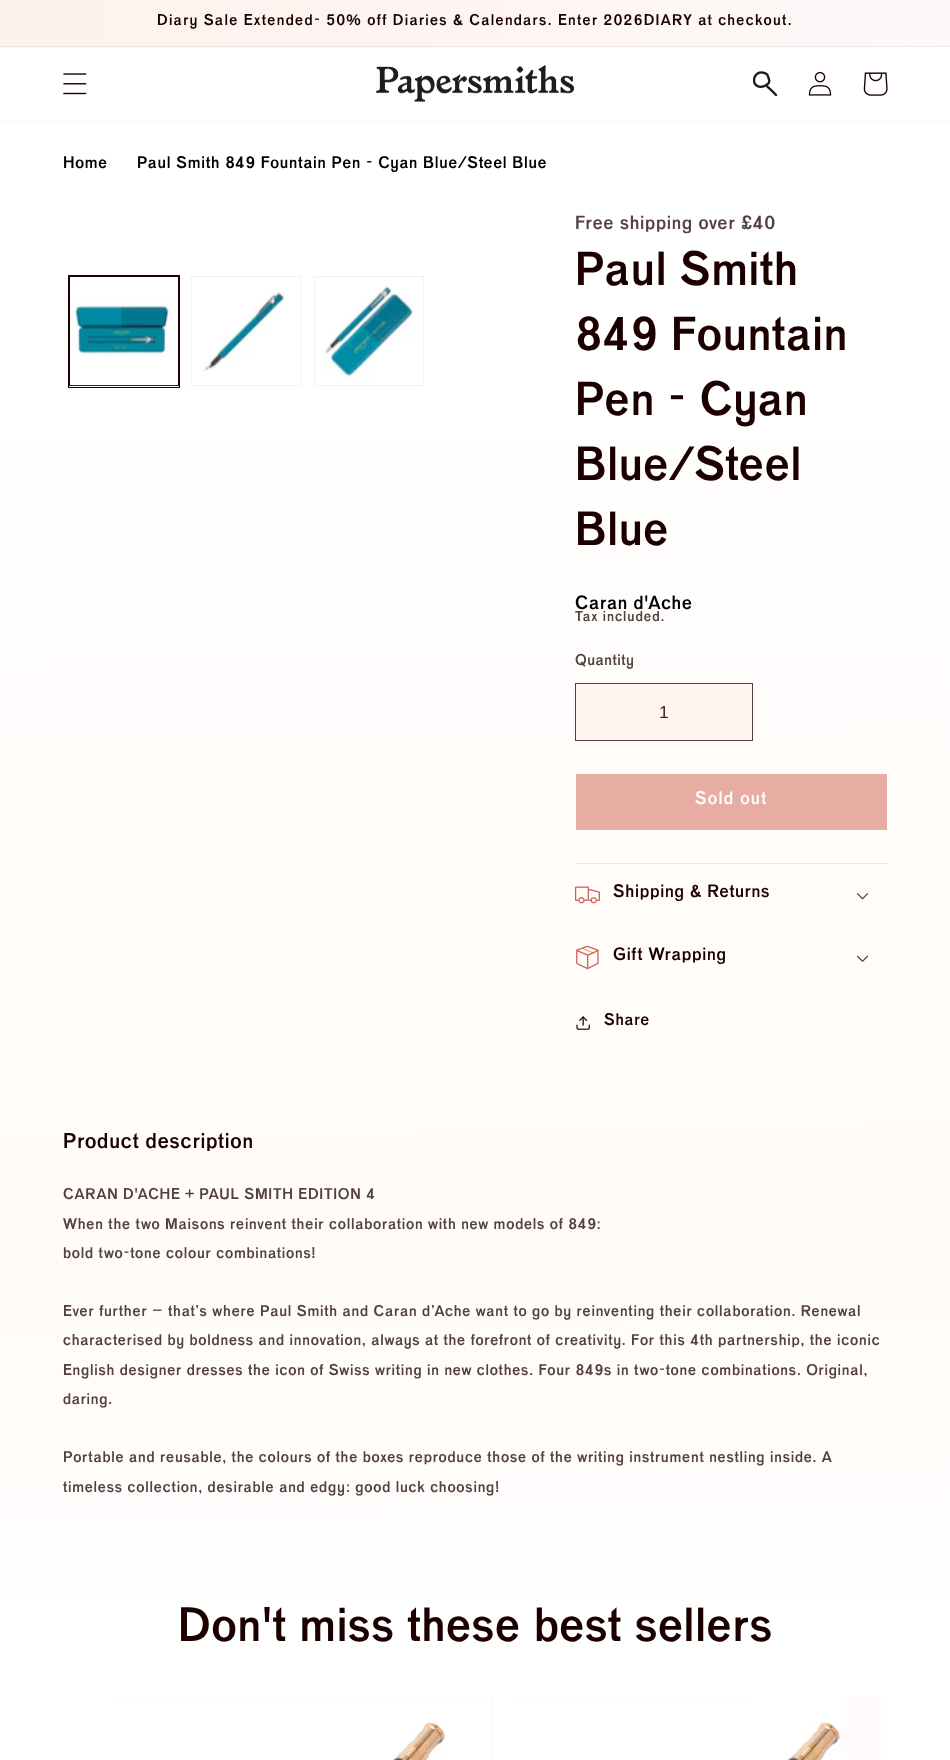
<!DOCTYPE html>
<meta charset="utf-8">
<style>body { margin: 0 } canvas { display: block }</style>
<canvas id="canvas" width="950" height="1760"></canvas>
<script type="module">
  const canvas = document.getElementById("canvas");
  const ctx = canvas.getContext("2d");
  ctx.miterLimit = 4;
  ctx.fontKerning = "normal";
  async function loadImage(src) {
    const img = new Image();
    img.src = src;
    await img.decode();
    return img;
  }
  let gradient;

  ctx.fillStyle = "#ffffff";
  ctx.fillRect(0, 0, 950, 1760);
  gradient = ctx.createLinearGradient(459, -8, 491, 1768);
  gradient.addColorStop(0, "#ffffff");
  gradient.addColorStop(0.72, "#fffbf8");
  gradient.addColorStop(1, "#ffffff");
  ctx.fillStyle = gradient;
  ctx.fillRect(0, 440, 950, 1159);
  gradient = ctx.createLinearGradient(950, 880, 0, 880);
  gradient.addColorStop(0, "#fffcfc");
  gradient.addColorStop(1, "#fff4ef");
  ctx.fillStyle = gradient;
  ctx.fillRect(0, 47, 950, 1);
  gradient = ctx.createLinearGradient(950, 880, 0, 880);
  gradient.addColorStop(0, "#fdf9f9");
  gradient.addColorStop(1, "#fdf2ed");
  ctx.fillStyle = gradient;
  ctx.fillRect(0, 0, 950, 46);
  gradient = ctx.createLinearGradient(950, 880, 0, 880);
  gradient.addColorStop(0, "#ede8e8");
  gradient.addColorStop(1, "#ede0dc");
  ctx.fillStyle = gradient;
  ctx.fillRect(0, 46, 950, 1);
  ctx.letterSpacing = "1.25px";
  ctx.font = "bold 16.25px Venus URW";
  ctx.fillStyle = "#1c0000";
  ctx.fillText("Diary Sale Extended- 50% off Diaries & Calendars. Enter 2026DIARY at checkout.", 157, 25);
  ctx.fillStyle = "#f8f7f6";
  ctx.fillRect(0, 121, 950, 1);
  ctx.drawImage(await loadImage("img1.png"), 63, 73, 24, 22);
  ctx.drawImage(await loadImage("img2.png"), 376, 65, 198, 37);
  ctx.drawImage(await loadImage("img3.png"), 753, 71, 25, 25);
  ctx.drawImage(await loadImage("img4.png"), 808, 71, 24, 25);
  ctx.drawImage(await loadImage("img5.png"), 863, 72, 25, 24);
  ctx.letterSpacing = "0.75px";
  ctx.font = "bold 17.5px Venus URW";
  ctx.fillStyle = "#000000";
  ctx.fillText("Home", 63, 168);
  ctx.fillText("Paul Smith 849 Fountain Pen - Cyan Blue/Steel Blue", 137, 168);
  ctx.strokeStyle = "#1c0000";
  ctx.strokeRect(68.5, 275.5, 111, 112);
  ctx.strokeRect(69.5, 276.5, 109, 109);
  ctx.drawImage(await loadImage("img6.png"), 70, 300, 108, 86);
  ctx.strokeStyle = "#f4f1f0";
  ctx.strokeRect(191.5, 276.5, 109, 109);
  ctx.drawImage(await loadImage("img7.png"), 204, 292, 81, 80);
  ctx.strokeRect(314.5, 276.5, 109, 109);
  ctx.drawImage(await loadImage("img8.png"), 325, 286, 90, 94);
  ctx.font = "bold 20px Venus URW";
  ctx.fillStyle = "#554040";
  ctx.fillText("Free shipping over £40", 575, 229);
  ctx.font = "bold 50px Venus URW";
  ctx.fillStyle = "#1c0000";
  ctx.fillText("Paul Smith", 575, 285);
  ctx.fillText("849 Fountain", 575, 350);
  ctx.fillText("Pen - Cyan", 575, 415);
  ctx.fillText("Blue/Steel", 575, 480);
  ctx.fillText("Blue", 575, 545);
  ctx.font = "bold 20px Venus URW";
  ctx.fillStyle = "#000000";
  ctx.fillText("Caran d'Ache", 575, 609);
  ctx.letterSpacing = "0.9px";
  ctx.font = "bold 15px Venus URW";
  ctx.fillStyle = "#554040";
  ctx.fillText("Tax included.", 575, 621);
  ctx.letterSpacing = "0.5px";
  ctx.font = "bold 16.25px Venus URW";
  ctx.fillText("Quantity", 575, 665);
  ctx.fillStyle = "#fff4f0";
  ctx.fillRect(576, 684, 176, 56);
  ctx.strokeStyle = "#553d3c";
  ctx.strokeRect(575.5, 683.5, 177, 57);
  ctx.letterSpacing = "0px";
  ctx.font = "17.5px Liberation Sans";
  ctx.fillStyle = "#3e2524";
  ctx.fillText("1", 659, 718);
  ctx.fillStyle = "#e7aca2";
  ctx.fillRect(576, 774, 311, 56);
  ctx.strokeStyle = "#fffefd";
  ctx.strokeRect(575.5, 773.5, 312, 57);
  ctx.letterSpacing = "1.25px";
  ctx.font = "bold 18.75px Venus URW";
  ctx.fillStyle = "#fffefd";
  ctx.fillText("Sold out", 695, 804);
  ctx.fillStyle = "#ede8e6";
  ctx.fillRect(575, 863, 313, 1);
  ctx.drawImage(await loadImage("img9.png"), 575, 886, 25, 18);
  ctx.letterSpacing = "0.75px";
  ctx.fillStyle = "#1c0000";
  ctx.fillText("Shipping & Returns", 613, 897);
  ctx.drawImage(await loadImage("img10.png"), 856, 893, 13, 7);
  ctx.drawImage(await loadImage("img11.png"), 576, 945, 23, 25);
  ctx.fillText("Gift Wrapping", 613, 960);
  ctx.drawImage(await loadImage("img12.png"), 856, 955, 13, 7);
  ctx.drawImage(await loadImage("img13.png"), 576, 1016, 14, 14);
  ctx.font = "bold 17.5px Venus URW";
  ctx.fillText("Share", 604, 1025);
  ctx.font = "bold 22.5px Venus URW";
  ctx.fillText("Product description", 63, 1148);
  ctx.font = "bold 16.25px Venus URW";
  ctx.fillStyle = "#554040";
  ctx.fillText("CARAN D'ACHE + PAUL SMITH EDITION 4", 63, 1199);
  ctx.fillText("When the two Maisons reinvent their collaboration with new models of 849:", 63, 1229);
  ctx.fillText("bold two-tone colour combinations!", 63, 1258);
  ctx.fillText("Ever further – that’s where Paul Smith and Caran d’Ache want to go by reinventing their collaboration. Renewal", 63, 1316);
  ctx.fillText("characterised by boldness and innovation, always at the forefront of creativity. For this 4th partnership, the iconic", 63, 1345);
  ctx.fillText("English designer dresses the icon of Swiss writing in new clothes. Four 849s in two-tone combinations. Original,", 63, 1375);
  ctx.fillText("daring.", 63, 1404);
  ctx.fillText("Portable and reusable, the colours of the boxes reproduce those of the writing instrument nestling inside. A", 63, 1462);
  ctx.fillText("timeless collection, desirable and edgy: good luck choosing!", 63, 1492);
  ctx.font = "bold 50px Venus URW";
  ctx.fillStyle = "#1c0000";
  ctx.fillText("Don't miss these best sellers", 178, 1641);
  gradient = ctx.createLinearGradient(950, 880, 0, 880);
  gradient.addColorStop(0, "#fffcfc");
  gradient.addColorStop(1, "#fff4ef");
  ctx.fillStyle = gradient;
  ctx.fillRect(113, 1696, 380, 64);
  ctx.drawImage(await loadImage("img14.png"), 113, 1696, 379, 64);
  ctx.fillRect(508, 1696, 380, 64);
  ctx.drawImage(await loadImage("img15.png"), 508, 1696, 333, 64);
</script>
